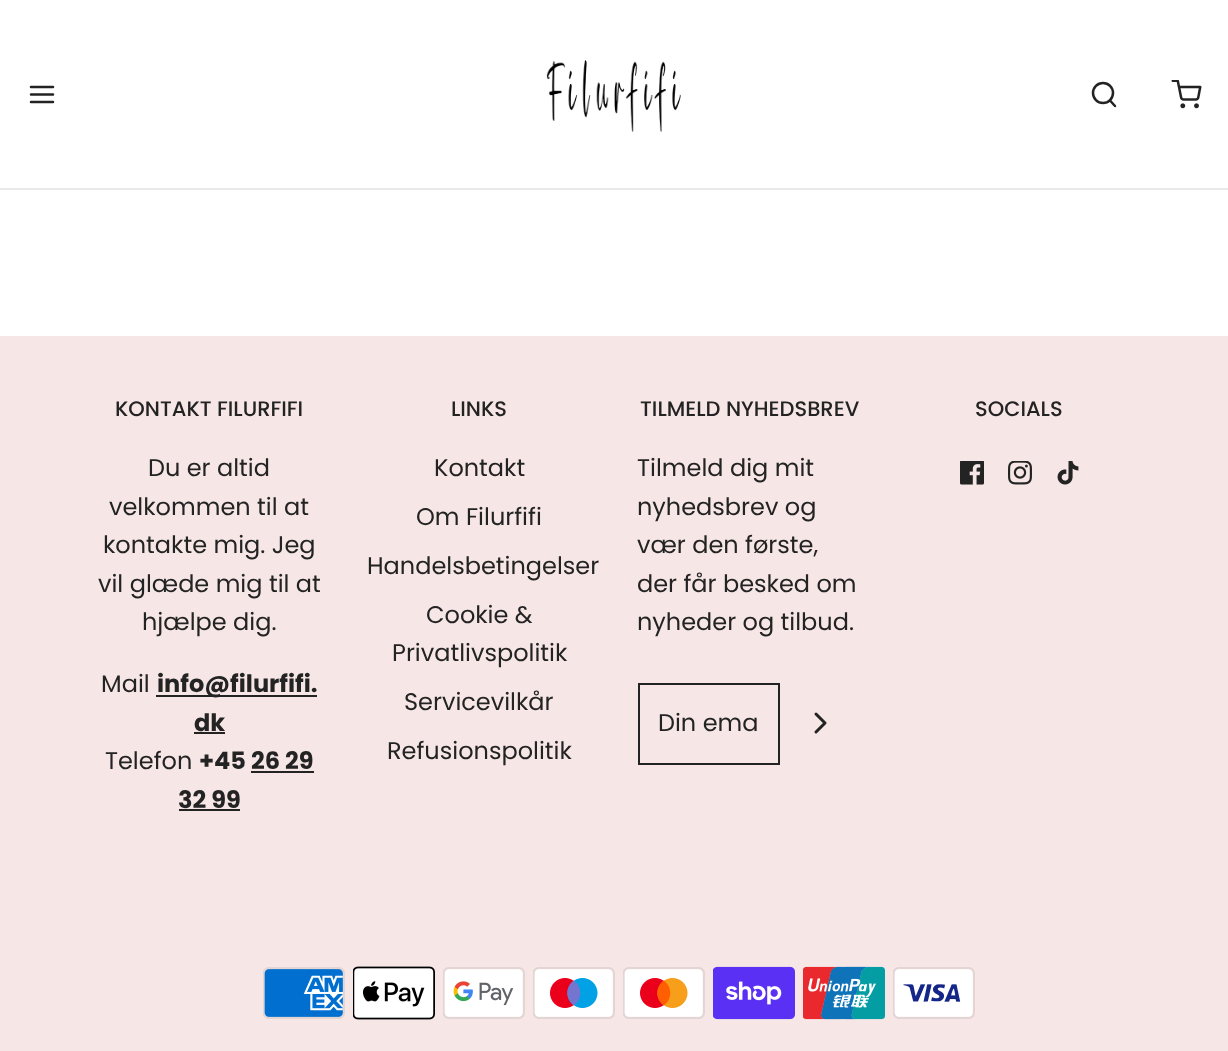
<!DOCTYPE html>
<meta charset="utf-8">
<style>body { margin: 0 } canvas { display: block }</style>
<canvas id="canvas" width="1228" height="1051"></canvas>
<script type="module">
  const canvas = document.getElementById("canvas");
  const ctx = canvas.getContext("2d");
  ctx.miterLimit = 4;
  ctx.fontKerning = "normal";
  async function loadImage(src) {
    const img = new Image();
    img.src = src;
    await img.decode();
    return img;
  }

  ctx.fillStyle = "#ffffff";
  ctx.fillRect(0, 0, 1228, 1051);
  ctx.fillStyle = "#e9e9e9";
  ctx.fillRect(0, 188, 1228, 2);
  ctx.beginPath();
  ctx.moveTo(31, 94.5);
  ctx.lineTo(53, 94.5);
  ctx.moveTo(31, 87);
  ctx.lineTo(53, 87);
  ctx.moveTo(31, 102);
  ctx.lineTo(53, 102);
  ctx.strokeStyle = "#232323";
  ctx.lineWidth = 2.5;
  ctx.lineCap = "round";
  ctx.lineJoin = "round";
  ctx.stroke();
  ctx.drawImage(await loadImage("img1.png"), 546, 60, 135, 72);
  ctx.beginPath();
  ctx.arc(1103, 93, 10, 0, Math.PI * 2);
  ctx.stroke();
  ctx.beginPath();
  ctx.moveTo(1115, 106);
  ctx.lineTo(1110, 100.5);
  ctx.stroke();
  ctx.drawImage(await loadImage("img2.png"), 1171, 80, 31, 29);
  ctx.fillStyle = "#f6e6e6";
  ctx.fillRect(0, 336, 1228, 715);
  ctx.font = "500 21px Poppins";
  ctx.fillStyle = "#232323";
  ctx.fillText("KONTAKT FILURFIFI", 115, 416);
  ctx.font = "24px Poppins";
  ctx.fillText("Du er altid", 148, 476);
  ctx.fillText("velkommen til at", 109, 515);
  ctx.fillText("kontakte mig. Jeg", 103, 553);
  ctx.fillText("vil glæde mig til at", 98, 592);
  ctx.fillText("hjælpe dig.", 142, 630);
  ctx.fillText("Mail", 101, 692);
  ctx.fillRect(156, 695, 161, 2);
  ctx.font = "bold 24px Poppins";
  ctx.fillText("info@filurfifi.", 157, 692);
  ctx.fillText("dk", 194, 731);
  ctx.fillRect(194, 732, 31, 2);
  ctx.font = "24px Poppins";
  ctx.fillText("Telefon", 105, 769);
  ctx.font = "bold 24px Poppins";
  ctx.fillText("+45 26 29", 199, 769);
  ctx.fillText("32 99", 178, 808);
  ctx.fillRect(251, 771, 63, 2);
  ctx.fillRect(179, 809, 61, 2);
  ctx.font = "500 21px Poppins";
  ctx.fillText("LINKS", 451, 416);
  ctx.font = "24px Poppins";
  ctx.fillText("Kontakt", 434, 476);
  ctx.fillText("Om Filurfifi", 416, 525);
  ctx.fillText("Handelsbetingelser", 367, 574);
  ctx.fillText("Cookie &", 426, 623);
  ctx.fillText("Privatlivspolitik", 392, 661);
  ctx.fillText("Servicevilkår", 404, 710);
  ctx.fillText("Refusionspolitik", 387, 759);
  ctx.font = "500 21px Poppins";
  ctx.fillText("TILMELD NYHEDSBREV", 640, 416);
  ctx.font = "24px Poppins";
  ctx.fillText("Tilmeld dig mit", 637, 476);
  ctx.fillText("nyhedsbrev og", 637, 515);
  ctx.fillText("vær den første,", 637, 553);
  ctx.fillText("der får besked om", 637, 592);
  ctx.fillText("nyheder og tilbud.", 637, 630);
  ctx.lineWidth = 2;
  ctx.lineJoin = "miter";
  ctx.strokeRect(639, 684, 140, 80);
  ctx.fillText("Din ema", 658, 731);
  ctx.beginPath();
  ctx.moveTo(816, 732);
  ctx.lineTo(825, 723);
  ctx.lineTo(816, 714);
  ctx.lineWidth = 3;
  ctx.lineJoin = "round";
  ctx.stroke();
  ctx.font = "500 21px Poppins";
  ctx.fillText("SOCIALS", 975, 416);
  ctx.drawImage(await loadImage("img3.png"), 960, 461, 24, 24);
  ctx.drawImage(await loadImage("img4.png"), 1008, 461, 24, 24);
  ctx.drawImage(await loadImage("img5.png"), 1057, 461, 22, 24);
  ctx.drawImage(await loadImage("img6.png"), 263, 967, 82, 52);
  ctx.drawImage(await loadImage("img7.png"), 353, 966, 82, 54);
  ctx.drawImage(await loadImage("img8.png"), 443, 967, 82, 52);
  ctx.drawImage(await loadImage("img9.png"), 533, 967, 82, 52);
  ctx.drawImage(await loadImage("img10.png"), 623, 967, 82, 52);
  ctx.drawImage(await loadImage("img11.png"), 713, 966, 82, 54);
  ctx.drawImage(await loadImage("img12.png"), 803, 966, 82, 54);
  ctx.drawImage(await loadImage("img13.png"), 893, 967, 82, 52);
</script>
